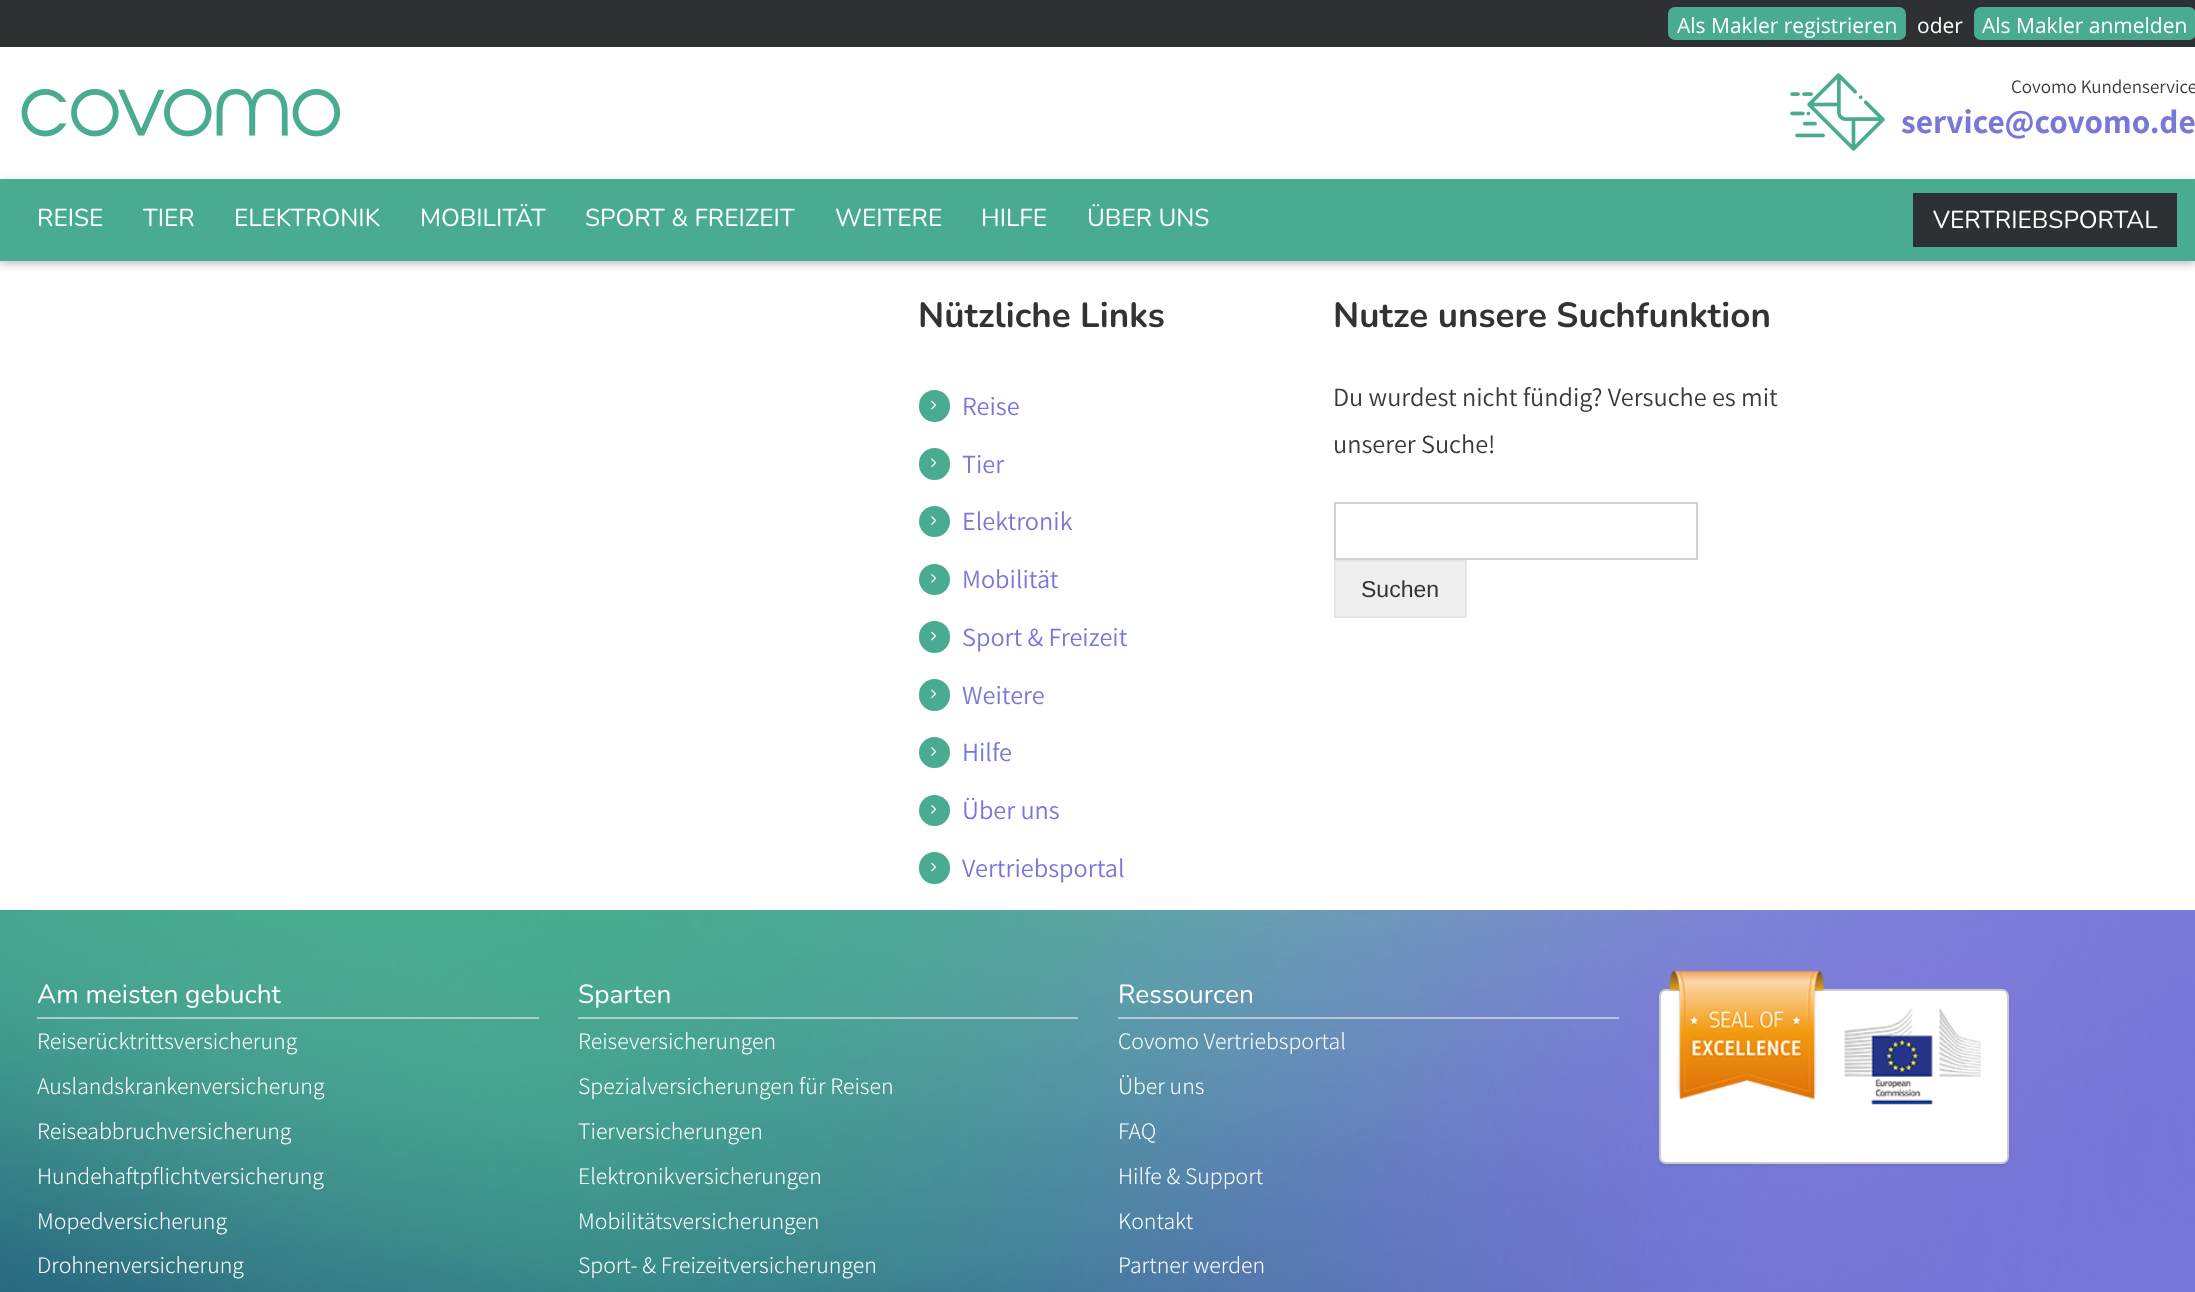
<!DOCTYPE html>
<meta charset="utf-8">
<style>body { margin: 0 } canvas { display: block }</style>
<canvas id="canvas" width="2195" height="1292"></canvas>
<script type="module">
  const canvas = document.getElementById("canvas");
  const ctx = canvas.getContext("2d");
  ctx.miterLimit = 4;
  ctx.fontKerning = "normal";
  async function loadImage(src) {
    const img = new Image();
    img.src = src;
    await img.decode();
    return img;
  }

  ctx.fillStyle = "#2d3133";
  ctx.fillRect(0, 0, 2195, 1292);
  ctx.fillStyle = "#49ac90";
  ctx.beginPath();
  ctx.roundRect(1668, 7, 238, 33, 7);
  ctx.fill();
  ctx.font = "21px Open Sans";
  ctx.fillStyle = "#ffffff";
  ctx.fillText("Als Makler registrieren", 1677, 33);
  ctx.fillText("oder", 1917, 33);
  ctx.fillStyle = "#49ac90";
  ctx.beginPath();
  ctx.roundRect(1974, 7, 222, 33, 7);
  ctx.fill();
  ctx.fillStyle = "#ffffff";
  ctx.fillText("Als Makler anmelden", 1982, 33);
  ctx.fillRect(0, 47, 2195, 132);
  ctx.drawImage(await loadImage("img1.png"), 21, 88, 320, 49);
  ctx.drawImage(await loadImage("img2.png"), 1790, 73, 95, 78);
  ctx.font = "200 19px Assistant";
  ctx.fillStyle = "#373a3c";
  ctx.fillText("Covomo Kundenservice", 2011, 93);
  ctx.font = "200 33.5px 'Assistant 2'";
  ctx.fillStyle = "#7977d8";
  ctx.fillText("service@covomo.de", 1901, 133);
  ctx.fillStyle = "#ffffff";
  ctx.fillRect(0, 261, 2195, 649);
  ctx.fillStyle = "rgba(0, 0, 0, 0.25)";
  ctx.filter = "blur(4.5px)";
  ctx.beginPath();
  ctx.rect(0, 182, 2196, 82);
  ctx.fill();
  ctx.filter = "none";
  ctx.fillStyle = "#49ac90";
  ctx.fillRect(0, 179, 2195, 82);
  ctx.font = "24.5px Nunito";
  ctx.fillStyle = "#ffffff";
  ctx.fillText("REISE", 37, 226);
  ctx.fillText("TIER", 143, 226);
  ctx.fillText("ELEKTRONIK", 234, 226);
  ctx.fillText("MOBILITÄT", 420, 226);
  ctx.fillText("SPORT & FREIZEIT", 585, 226);
  ctx.fillText("WEITERE", 835, 226);
  ctx.fillText("HILFE", 981, 226);
  ctx.fillText("ÜBER UNS", 1087, 226);
  ctx.fillStyle = "#2d3133";
  ctx.fillRect(1913, 193, 264, 54);
  ctx.fillStyle = "#ffffff";
  ctx.fillText("VERTRIEBSPORTAL", 1933, 228);
  ctx.font = "bold 35px Nunito";
  ctx.fillStyle = "#333333";
  ctx.fillText("Nützliche Links", 918, 327);
  ctx.fillStyle = "#49ac90";
  ctx.beginPath();
  ctx.roundRect(919, 390, 31, 32, 15.5);
  ctx.fill();
  ctx.drawImage(await loadImage("img3.png"), 931, 400, 6, 10);
  ctx.font = "200 26.25px Assistant";
  ctx.fillStyle = "#7977d8";
  ctx.fillText("Reise", 962, 415);
  ctx.fillStyle = "#49ac90";
  ctx.beginPath();
  ctx.roundRect(919, 448, 31, 32, 15.5);
  ctx.fill();
  ctx.drawImage(await loadImage("img4.png"), 931, 458, 6, 10);
  ctx.fillStyle = "#7977d8";
  ctx.fillText("Tier", 962, 473);
  ctx.fillStyle = "#49ac90";
  ctx.beginPath();
  ctx.arc(934.5, 521.5, 15.5, 0, Math.PI * 2);
  ctx.fill();
  ctx.drawImage(await loadImage("img5.png"), 931, 516, 6, 9);
  ctx.fillStyle = "#7977d8";
  ctx.fillText("Elektronik", 962, 530);
  ctx.fillStyle = "#49ac90";
  ctx.beginPath();
  ctx.arc(934.5, 579.5, 15.5, 0, Math.PI * 2);
  ctx.fill();
  ctx.drawImage(await loadImage("img6.png"), 931, 574, 6, 9);
  ctx.fillStyle = "#7977d8";
  ctx.fillText("Mobilität", 962, 588);
  ctx.fillStyle = "#49ac90";
  ctx.beginPath();
  ctx.roundRect(919, 621, 31, 32, 15.5);
  ctx.fill();
  ctx.drawImage(await loadImage("img3.png"), 931, 631, 6, 10);
  ctx.fillStyle = "#7977d8";
  ctx.fillText("Sport & Freizeit", 962, 646);
  ctx.fillStyle = "#49ac90";
  ctx.beginPath();
  ctx.roundRect(919, 679, 31, 32, 15.5);
  ctx.fill();
  ctx.drawImage(await loadImage("img4.png"), 931, 689, 6, 10);
  ctx.fillStyle = "#7977d8";
  ctx.fillText("Weitere", 962, 704);
  ctx.fillStyle = "#49ac90";
  ctx.beginPath();
  ctx.arc(934.5, 752.5, 15.5, 0, Math.PI * 2);
  ctx.fill();
  ctx.drawImage(await loadImage("img5.png"), 931, 747, 6, 9);
  ctx.fillStyle = "#7977d8";
  ctx.fillText("Hilfe", 962, 761);
  ctx.fillStyle = "#49ac90";
  ctx.beginPath();
  ctx.arc(934.5, 810.5, 15.5, 0, Math.PI * 2);
  ctx.fill();
  ctx.drawImage(await loadImage("img6.png"), 931, 805, 6, 9);
  ctx.fillStyle = "#7977d8";
  ctx.fillText("Über uns", 962, 819);
  ctx.fillStyle = "#49ac90";
  ctx.beginPath();
  ctx.roundRect(919, 852, 31, 32, 15.5);
  ctx.fill();
  ctx.drawImage(await loadImage("img3.png"), 931, 862, 6, 10);
  ctx.fillStyle = "#7977d8";
  ctx.fillText("Vertriebsportal", 962, 877);
  ctx.font = "bold 35px Nunito";
  ctx.fillStyle = "#333333";
  ctx.fillText("Nutze unsere Suchfunktion", 1333, 327);
  ctx.font = "200 26.25px Assistant";
  ctx.fillStyle = "#373a3c";
  ctx.fillText("Du wurdest nicht fündig? Versuche es mit", 1333, 406);
  ctx.fillText("unserer Suche!", 1333, 453);
  ctx.strokeStyle = "#d2d2d2";
  ctx.lineWidth = 2;
  ctx.strokeRect(1335, 503, 362, 56);
  ctx.fillStyle = "#efefef";
  ctx.beginPath();
  ctx.rect(1335, 561, 131, 56);
  ctx.fill();
  ctx.strokeStyle = "#e7e6e6";
  ctx.stroke();
  ctx.font = "23px Liberation Sans";
  ctx.fillStyle = "#333333";
  ctx.fillText("Suchen", 1361, 597);
  ctx.drawImage(await loadImage("img7.png"), 0, 910, 2195, 382);
  ctx.fillStyle = "rgba(255, 255, 255, 0.5)";
  ctx.fillRect(37, 1017, 502, 2);
  ctx.font = "26.25px Nunito";
  ctx.fillStyle = "#ffffff";
  ctx.fillText("Am meisten gebucht", 37, 1003);
  ctx.font = "200 23.6px 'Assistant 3'";
  ctx.fillText("Reiserücktrittsversicherung", 37, 1049);
  ctx.fillText("Auslandskrankenversicherung", 37, 1094);
  ctx.fillText("Reiseabbruchversicherung", 37, 1139);
  ctx.fillText("Hundehaftpflichtversicherung", 37, 1184);
  ctx.fillText("Mopedversicherung", 37, 1229);
  ctx.fillText("Drohnenversicherung", 37, 1273);
  ctx.fillStyle = "rgba(255, 255, 255, 0.5)";
  ctx.fillRect(578, 1017, 500, 2);
  ctx.font = "26.25px Nunito";
  ctx.fillStyle = "#ffffff";
  ctx.fillText("Sparten", 578, 1003);
  ctx.font = "200 23.6px 'Assistant 3'";
  ctx.fillText("Reiseversicherungen", 578, 1049);
  ctx.fillText("Spezialversicherungen für Reisen", 578, 1094);
  ctx.fillText("Tierversicherungen", 578, 1139);
  ctx.fillText("Elektronikversicherungen", 578, 1184);
  ctx.fillText("Mobilitätsversicherungen", 578, 1229);
  ctx.fillText("Sport- & Freizeitversicherungen", 578, 1273);
  ctx.fillStyle = "rgba(255, 255, 255, 0.5)";
  ctx.fillRect(1118, 1017, 501, 2);
  ctx.font = "26.25px Nunito";
  ctx.fillStyle = "#ffffff";
  ctx.fillText("Ressourcen", 1118, 1003);
  ctx.font = "200 23.6px 'Assistant 3'";
  ctx.fillText("Covomo Vertriebsportal", 1118, 1049);
  ctx.fillText("Über uns", 1118, 1094);
  ctx.fillText("FAQ", 1118, 1139);
  ctx.fillText("Hilfe & Support", 1118, 1184);
  ctx.fillText("Kontakt", 1118, 1229);
  ctx.fillText("Partner werden", 1118, 1273);
  ctx.fillStyle = "rgba(0, 0, 0, 0.05)";
  ctx.filter = "blur(1px)";
  ctx.beginPath();
  ctx.roundRect(1659, 991, 350, 175, 7);
  ctx.fill();
  ctx.filter = "none";
  ctx.fillStyle = "#ffffff";
  ctx.beginPath();
  ctx.roundRect(1660, 990, 348, 173, 6);
  ctx.fill();
  ctx.strokeStyle = "#cccccc";
  ctx.stroke();
  ctx.drawImage(await loadImage("img8.png"), 1669, 971, 155, 128);
  ctx.drawImage(await loadImage("img9.png"), 1844, 1008, 137, 97);
</script>
